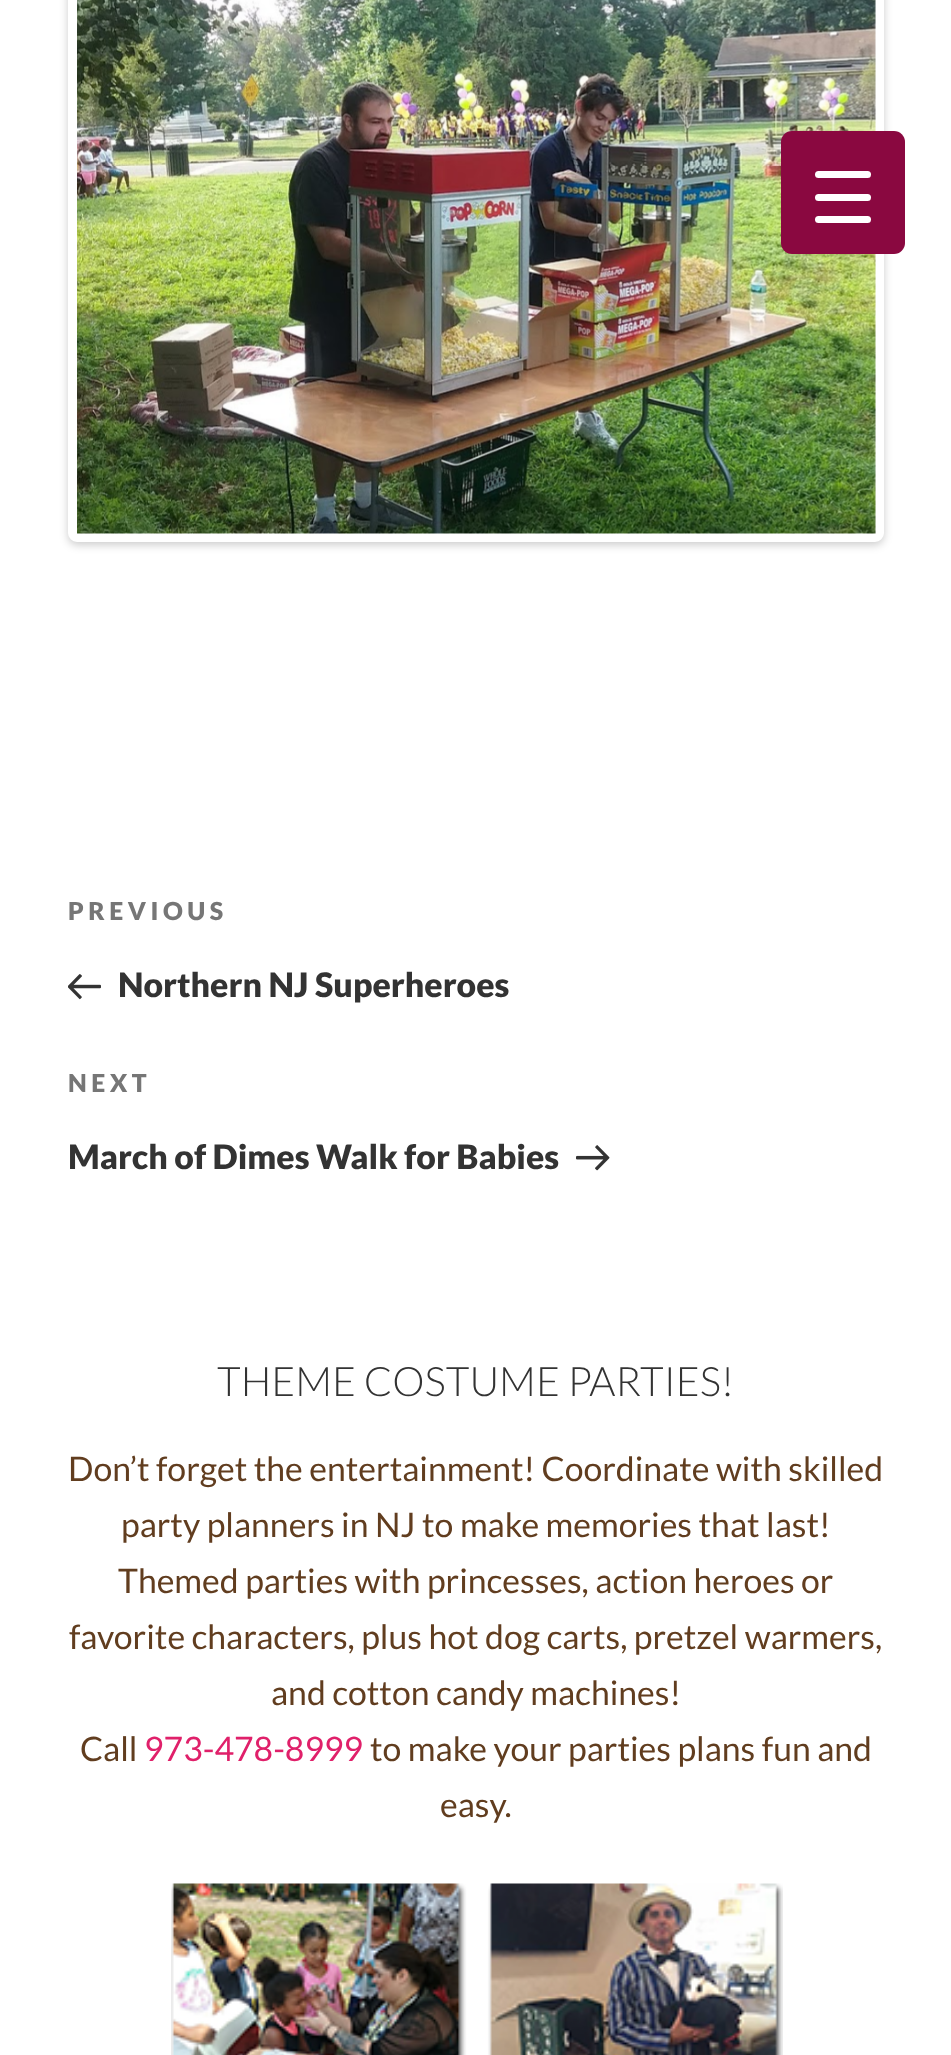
<!DOCTYPE html>
<meta charset="utf-8">
<style>body { margin: 0 } canvas { display: block }</style>
<canvas id="canvas" width="951" height="2055"></canvas>
<script type="module">
  const canvas = document.getElementById("canvas");
  const ctx = canvas.getContext("2d");
  ctx.miterLimit = 4;
  ctx.fontKerning = "normal";
  async function loadImage(src) {
    const img = new Image();
    img.src = src;
    await img.decode();
    return img;
  }

  ctx.fillStyle = "#ffffff";
  ctx.fillRect(0, 0, 951, 2055);
  ctx.fillStyle = "rgba(0, 0, 0, 0.2)";
  ctx.filter = "blur(4.5px)";
  ctx.beginPath();
  ctx.roundRect(68, -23, 816, 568, 9);
  ctx.fill();
  ctx.filter = "none";
  ctx.beginPath();
  ctx.roundRect(72.5, -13.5, 807, 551, 4.5);
  ctx.strokeStyle = "#ffffff";
  ctx.lineWidth = 9;
  ctx.stroke();
  ctx.drawImage(await loadImage("img1.png"), 77, 0, 799, 534);
  ctx.fillStyle = "#8a0840";
  ctx.beginPath();
  ctx.roundRect(781, 131, 124, 123, 11);
  ctx.fill();
  ctx.fillStyle = "#ffffff";
  ctx.beginPath();
  ctx.roundRect(815, 194, 56, 7, 3.5);
  ctx.fill();
  ctx.beginPath();
  ctx.roundRect(815, 171, 56, 7, 3.5);
  ctx.fill();
  ctx.beginPath();
  ctx.roundRect(815, 216, 56, 7, 3.5);
  ctx.fill();
  ctx.letterSpacing = "4.5px";
  ctx.font = "900 24.75px Lato";
  ctx.fillStyle = "#767676";
  ctx.fillText("PREVIOUS", 68, 920);
  ctx.drawImage(await loadImage("img2.png"), 68, 974, 33, 26);
  ctx.letterSpacing = "0px";
  ctx.font = "900 33.75px Lato";
  ctx.fillStyle = "#333333";
  ctx.fillText("Northern NJ Superheroes", 118, 997);
  ctx.letterSpacing = "4.5px";
  ctx.font = "900 24.75px Lato";
  ctx.fillStyle = "#767676";
  ctx.fillText("NEXT", 68, 1092);
  ctx.letterSpacing = "0px";
  ctx.font = "900 33.75px Lato";
  ctx.fillStyle = "#333333";
  ctx.fillText("March of Dimes Walk for Babies", 68, 1169);
  ctx.drawImage(await loadImage("img3.png"), 576, 1145, 34, 26);
  ctx.font = "300 40.5px Lato";
  ctx.fillText("THEME COSTUME PARTIES!", 217, 1396);
  ctx.font = "33.75px Lato";
  ctx.fillStyle = "#613d1f";
  ctx.fillText("Don’t forget the entertainment! Coordinate with skilled", 68, 1481);
  ctx.fillText("party planners in NJ to make memories that last!", 121, 1537);
  ctx.fillText("Themed parties with princesses, action heroes or", 118, 1593);
  ctx.fillText("favorite characters, plus hot dog carts, pretzel warmers,", 69, 1649);
  ctx.fillText("and cotton candy machines!", 271, 1705);
  ctx.fillText("Call", 80, 1761);
  ctx.fillStyle = "#e0206a";
  ctx.fillText("973-478-8999", 144, 1761);
  ctx.fillStyle = "#613d1f";
  ctx.fillText("to make your parties plans fun and", 370, 1761);
  ctx.fillText("easy.", 440, 1817);
  ctx.drawImage(await loadImage("img4.png"), 171, 1883, 612, 172);
</script>
